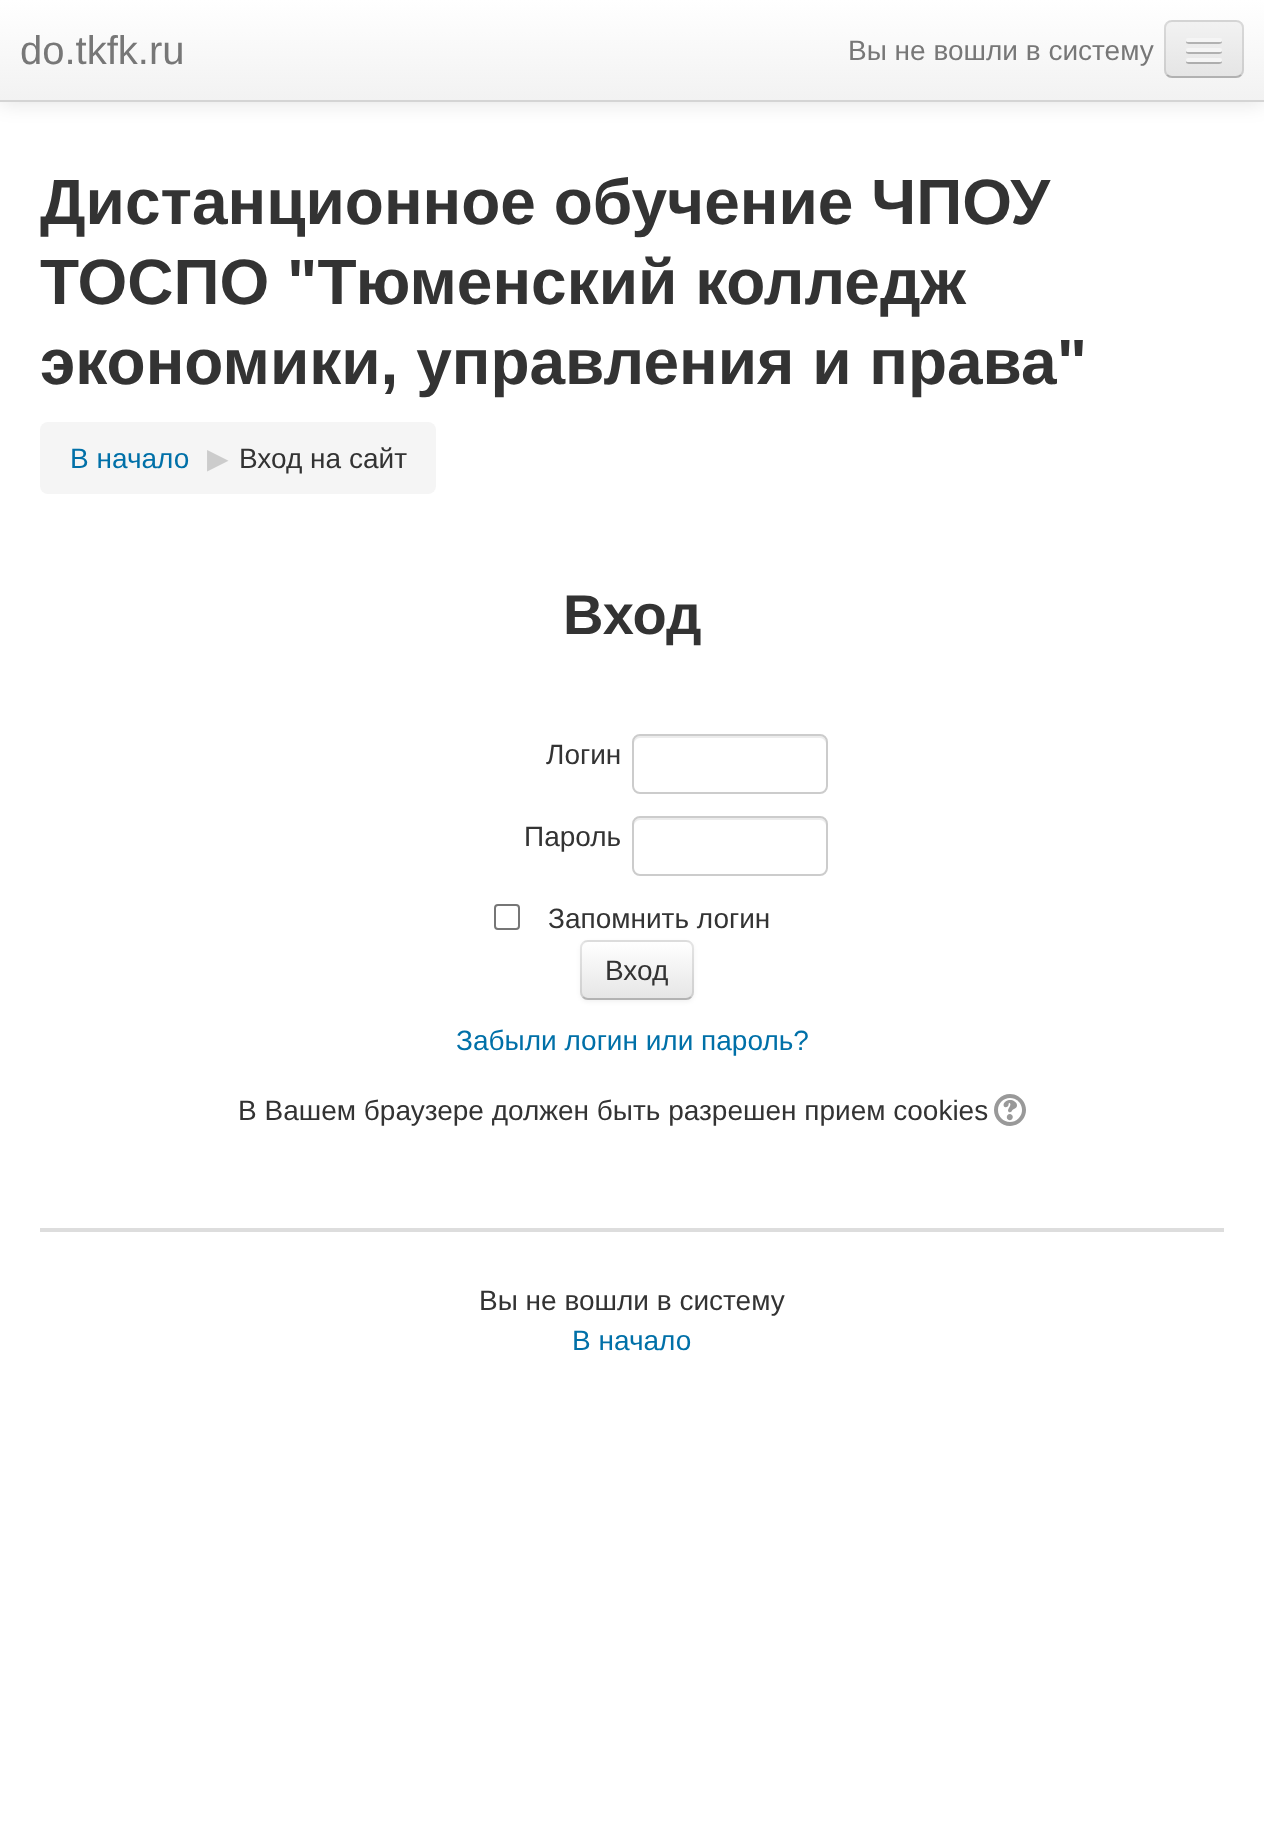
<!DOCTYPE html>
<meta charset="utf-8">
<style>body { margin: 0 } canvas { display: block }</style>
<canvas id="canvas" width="1264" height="1825"></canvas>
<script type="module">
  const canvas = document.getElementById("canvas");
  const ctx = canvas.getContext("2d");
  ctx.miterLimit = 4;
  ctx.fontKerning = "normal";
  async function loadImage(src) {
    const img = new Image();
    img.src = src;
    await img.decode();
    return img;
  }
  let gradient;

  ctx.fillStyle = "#ffffff";
  ctx.fillRect(0, 0, 1264, 1825);
  ctx.fillStyle = "rgba(0, 0, 0, 0.1)";
  ctx.filter = "blur(10px)";
  ctx.beginPath();
  ctx.rect(0, 2, 1264, 102);
  ctx.fill();
  ctx.filter = "none";
  gradient = ctx.createLinearGradient(632, 0, 632, 100);
  gradient.addColorStop(0, "#ffffff");
  gradient.addColorStop(1, "#f2f2f2");
  ctx.fillStyle = gradient;
  ctx.fillRect(0, 0, 1264, 100);
  ctx.fillStyle = "#d4d4d4";
  ctx.fillRect(0, 100, 1264, 2);
  ctx.font = "40px Liberation Sans";
  ctx.fillStyle = "#777777";
  ctx.fillText("do.tkfk.ru", 20, 64);
  ctx.font = "28px Liberation Sans";
  ctx.fillText("Вы не вошли в систему", 848, 60);
  ctx.fillStyle = "#ededed";
  ctx.beginPath();
  ctx.roundRect(1164, 20, 80, 58, 8);
  ctx.fill();
  ctx.save();
  ctx.beginPath();
  ctx.roundRect(1164, 20, 80, 58, 8);
  ctx.clip();
  gradient = ctx.createLinearGradient(1204, 22, 1204, 76);
  gradient.addColorStop(0, "#f2f2f2");
  gradient.addColorStop(1, "#e5e5e5");
  ctx.fillStyle = gradient;
  ctx.fillRect(1164, 22, 80, 54);
  ctx.restore();
  ctx.beginPath();
  ctx.moveTo(1241, 75);
  ctx.bezierCurveTo(1239.5, 76.5, 1238, 77, 1236, 77);
  ctx.lineTo(1172, 77);
  ctx.bezierCurveTo(1170, 77, 1168.5, 76.5, 1167, 75);
  ctx.strokeStyle = "rgba(0, 0, 0, 0.25)";
  ctx.lineWidth = 2;
  ctx.stroke();
  ctx.beginPath();
  ctx.moveTo(1167, 75);
  ctx.bezierCurveTo(1165.5, 73.5, 1165, 72, 1165, 70);
  ctx.lineTo(1165, 28);
  ctx.bezierCurveTo(1165, 26, 1165.5, 24.5, 1167, 23);
  ctx.bezierCurveTo(1168.5, 21.5, 1170, 21, 1172, 21);
  ctx.lineTo(1236, 21);
  ctx.bezierCurveTo(1238, 21, 1239.5, 21.5, 1241, 23);
  ctx.bezierCurveTo(1242.5, 24.5, 1243, 26, 1243, 28);
  ctx.lineTo(1243, 70);
  ctx.bezierCurveTo(1243, 72, 1242.5, 73.5, 1241, 75);
  ctx.strokeStyle = "rgba(0, 0, 0, 0.1)";
  ctx.stroke();
  ctx.fillStyle = "#b2b2b2";
  ctx.beginPath();
  ctx.moveTo(1186.5, 41);
  ctx.bezierCurveTo(1184, 45, 1193, 44, 1193.5, 44);
  ctx.lineTo(1214.5, 44);
  ctx.bezierCurveTo(1215, 44, 1224, 45, 1221.5, 41);
  ctx.bezierCurveTo(1221.5, 41.5, 1220.5, 42, 1220, 42);
  ctx.lineTo(1188, 42);
  ctx.bezierCurveTo(1187.5, 42, 1186.5, 41.5, 1186.5, 41);
  ctx.closePath();
  ctx.fill();
  ctx.fillStyle = "#f5f5f5";
  ctx.beginPath();
  ctx.roundRect(1186, 38, 36, 4, 2);
  ctx.fill();
  ctx.fillStyle = "#b0b0b0";
  ctx.beginPath();
  ctx.moveTo(1186.5, 51);
  ctx.bezierCurveTo(1184, 55, 1193, 54, 1193.5, 54);
  ctx.lineTo(1214.5, 54);
  ctx.bezierCurveTo(1215, 54, 1224, 55, 1221.5, 51);
  ctx.bezierCurveTo(1221.5, 51.5, 1220.5, 52, 1220, 52);
  ctx.lineTo(1188, 52);
  ctx.bezierCurveTo(1187.5, 52, 1186.5, 51.5, 1186.5, 51);
  ctx.closePath();
  ctx.fill();
  ctx.fillStyle = "#f5f5f5";
  ctx.beginPath();
  ctx.roundRect(1186, 48, 36, 4, 2);
  ctx.fill();
  ctx.fillStyle = "#aeaeae";
  ctx.beginPath();
  ctx.moveTo(1186.5, 61);
  ctx.bezierCurveTo(1184, 65, 1193, 64, 1193.5, 64);
  ctx.lineTo(1214.5, 64);
  ctx.bezierCurveTo(1215, 64, 1224, 65, 1221.5, 61);
  ctx.bezierCurveTo(1221.5, 61.5, 1220.5, 62, 1220, 62);
  ctx.lineTo(1188, 62);
  ctx.bezierCurveTo(1187.5, 62, 1186.5, 61.5, 1186.5, 61);
  ctx.closePath();
  ctx.fill();
  ctx.fillStyle = "#f5f5f5";
  ctx.beginPath();
  ctx.roundRect(1186, 58, 36, 4, 2);
  ctx.fill();
  ctx.font = "bold 64px Liberation Sans";
  ctx.fillStyle = "#333333";
  ctx.fillText("Дистанционное обучение ЧПОУ", 40, 224);
  ctx.fillText("ТОСПО \"Тюменский колледж", 40, 304);
  ctx.fillText("экономики, управления и права\"", 40, 384);
  ctx.fillStyle = "#f5f5f5";
  ctx.beginPath();
  ctx.roundRect(40, 422, 396, 72, 8);
  ctx.fill();
  ctx.font = "28px Liberation Sans";
  ctx.fillStyle = "#0070a8";
  ctx.fillText("В начало", 70, 468);
  ctx.font = "28px DejaVu Sans";
  ctx.fillStyle = "#cccccc";
  ctx.fillText("▶︎", 207, 468);
  ctx.font = "28px Liberation Sans";
  ctx.fillStyle = "#333333";
  ctx.fillText("Вход на сайт", 239, 468);
  ctx.font = "bold 56px Liberation Sans";
  ctx.fillText("Вход", 563, 634);
  ctx.font = "28px Liberation Sans";
  ctx.fillText("Логин", 546, 764);
  ctx.fillStyle = "#ececec";
  ctx.beginPath();
  ctx.moveTo(640, 738);
  ctx.lineTo(820, 738);
  ctx.bezierCurveTo(823, 738, 826, 741, 826, 744);
  ctx.lineTo(826, 742);
  ctx.bezierCurveTo(826, 739, 823, 736, 820, 736);
  ctx.lineTo(640, 736);
  ctx.bezierCurveTo(637, 736, 634, 739, 634, 742);
  ctx.lineTo(634, 744);
  ctx.bezierCurveTo(634, 741, 637, 738, 640, 738);
  ctx.closePath();
  ctx.fill();
  ctx.beginPath();
  ctx.roundRect(633, 735, 194, 58, 7);
  ctx.strokeStyle = "#cccccc";
  ctx.stroke();
  ctx.fillStyle = "#333333";
  ctx.fillText("Пароль", 524, 846);
  ctx.fillStyle = "#ececec";
  ctx.beginPath();
  ctx.moveTo(640, 820);
  ctx.lineTo(820, 820);
  ctx.bezierCurveTo(823, 820, 826, 823, 826, 826);
  ctx.lineTo(826, 824);
  ctx.bezierCurveTo(826, 821, 823, 818, 820, 818);
  ctx.lineTo(640, 818);
  ctx.bezierCurveTo(637, 818, 634, 821, 634, 824);
  ctx.lineTo(634, 826);
  ctx.bezierCurveTo(634, 823, 637, 820, 640, 820);
  ctx.closePath();
  ctx.fill();
  ctx.beginPath();
  ctx.roundRect(633, 817, 194, 58, 7);
  ctx.stroke();
  ctx.beginPath();
  ctx.roundRect(495, 905, 24, 24, 3);
  ctx.strokeStyle = "#767676";
  ctx.stroke();
  ctx.fillStyle = "#333333";
  ctx.fillText("Запомнить логин", 548, 928);
  ctx.fillStyle = "rgba(0, 0, 0, 0.05)";
  ctx.filter = "blur(2px)";
  ctx.beginPath();
  ctx.roundRect(580, 942, 114, 60, 8);
  ctx.fill();
  ctx.filter = "none";
  ctx.fillStyle = "#f5f5f5";
  ctx.beginPath();
  ctx.roundRect(580, 940, 114, 60, 8);
  ctx.fill();
  ctx.save();
  ctx.beginPath();
  ctx.roundRect(580, 940, 114, 60, 8);
  ctx.clip();
  gradient = ctx.createLinearGradient(637, 942, 637, 998);
  gradient.addColorStop(0, "#ffffff");
  gradient.addColorStop(1, "#e6e6e6");
  ctx.fillStyle = gradient;
  ctx.fillRect(580, 942, 114, 56);
  ctx.restore();
  ctx.beginPath();
  ctx.moveTo(691, 997);
  ctx.bezierCurveTo(689.5, 998.5, 688, 999, 686, 999);
  ctx.lineTo(588, 999);
  ctx.bezierCurveTo(586, 999, 584.5, 998.5, 583, 997);
  ctx.strokeStyle = "#b3b3b3";
  ctx.stroke();
  ctx.beginPath();
  ctx.moveTo(583, 997);
  ctx.bezierCurveTo(581.5, 995.5, 581, 994, 581, 992);
  ctx.lineTo(581, 948);
  ctx.bezierCurveTo(581, 946, 581.5, 944.5, 583, 943);
  ctx.bezierCurveTo(584.5, 941.5, 586, 941, 588, 941);
  ctx.lineTo(686, 941);
  ctx.bezierCurveTo(688, 941, 689.5, 941.5, 691, 943);
  ctx.bezierCurveTo(692.5, 944.5, 693, 946, 693, 948);
  ctx.lineTo(693, 992);
  ctx.bezierCurveTo(693, 994, 692.5, 995.5, 691, 997);
  ctx.strokeStyle = "rgba(0, 0, 0, 0.1)";
  ctx.stroke();
  ctx.fillStyle = "#333333";
  ctx.fillText("Вход", 605, 980);
  ctx.fillStyle = "#0070a8";
  ctx.fillText("Забыли логин или пароль?", 456, 1050);
  ctx.fillStyle = "#333333";
  ctx.fillText("В Вашем браузере должен быть разрешен прием cookies", 238, 1120);
  ctx.drawImage(await loadImage("img1.png"), 994, 1094, 32, 32);
  ctx.fillStyle = "#dddddd";
  ctx.fillRect(40, 1228, 1184, 4);
  ctx.fillStyle = "#333333";
  ctx.fillText("Вы не вошли в систему", 479, 1310);
  ctx.fillStyle = "#0070a8";
  ctx.fillText("В начало", 572, 1350);
</script>
